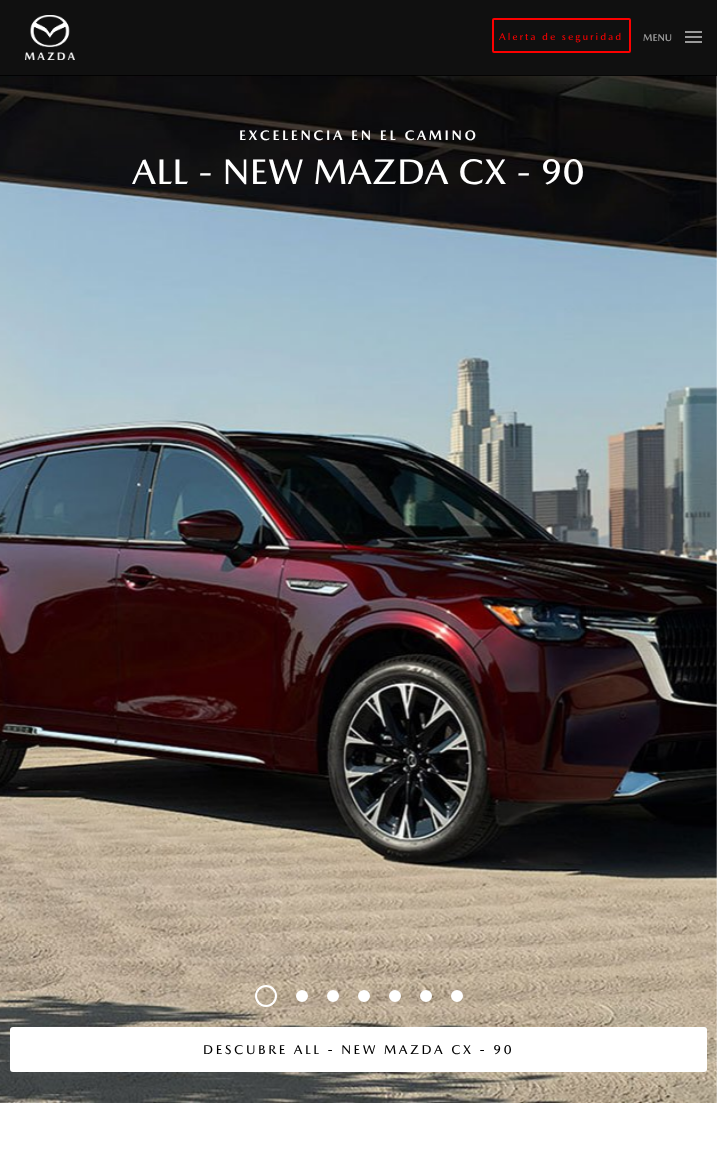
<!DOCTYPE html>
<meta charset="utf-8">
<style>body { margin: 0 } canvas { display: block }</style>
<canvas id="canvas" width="717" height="1153"></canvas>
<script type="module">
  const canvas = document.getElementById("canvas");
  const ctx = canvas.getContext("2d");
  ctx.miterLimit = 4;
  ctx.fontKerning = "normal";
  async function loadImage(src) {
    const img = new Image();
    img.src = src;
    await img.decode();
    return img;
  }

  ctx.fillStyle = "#ffffff";
  ctx.fillRect(0, 0, 717, 1153);
  ctx.fillStyle = "#101010";
  ctx.fillRect(0, 0, 717, 75);
  ctx.drawImage(await loadImage("img1.png"), 25, 15, 50, 45);
  ctx.beginPath();
  ctx.roundRect(493, 19, 137, 33, 1);
  ctx.strokeStyle = "#fc0000";
  ctx.lineWidth = 2;
  ctx.stroke();
  ctx.letterSpacing = "2px";
  ctx.font = "500 10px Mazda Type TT";
  ctx.fillStyle = "#fc0000";
  ctx.fillText("Alerta de seguridad", 499, 40);
  ctx.letterSpacing = "0px";
  ctx.font = "bold 10px Mazda Type TT";
  ctx.fillStyle = "#999999";
  ctx.fillText("MENU", 643, 41);
  ctx.fillRect(685, 31, 17, 2);
  ctx.fillRect(685, 36, 17, 2);
  ctx.fillRect(685, 41, 17, 2);
  ctx.drawImage(await loadImage("img2.png"), 0, 75, 717, 1028);
  ctx.fillStyle = "rgba(0, 0, 0, 0.85)";
  ctx.fillRect(0, 75, 717, 1);
  ctx.letterSpacing = "2.6px";
  ctx.font = "bold 14px Mazda Type TT";
  ctx.fillStyle = "#ffffff";
  ctx.fillText("EXCELENCIA EN EL CAMINO", 239, 140);
  ctx.letterSpacing = "0.35px";
  ctx.font = "500 36px Mazda Type TT";
  ctx.fillText("ALL - NEW MAZDA CX - 90", 132, 184);
  ctx.beginPath();
  ctx.roundRect(10, 1027, 697, 45, 3);
  ctx.fill();
  ctx.letterSpacing = "2.6px";
  ctx.font = "500 13px Mazda Type TT";
  ctx.fillStyle = "#000000";
  ctx.fillText("DESCUBRE ALL - NEW MAZDA CX - 90", 203, 1054);
  ctx.beginPath();
  ctx.arc(266, 996, 10, 0, Math.PI * 2);
  ctx.strokeStyle = "#ffffff";
  ctx.stroke();
  ctx.fillStyle = "#ffffff";
  ctx.beginPath();
  ctx.arc(302, 996, 5, 0, Math.PI * 2);
  ctx.fill();
  ctx.stroke();
  ctx.beginPath();
  ctx.arc(333, 996, 5, 0, Math.PI * 2);
  ctx.fill();
  ctx.stroke();
  ctx.beginPath();
  ctx.arc(364, 996, 5, 0, Math.PI * 2);
  ctx.fill();
  ctx.stroke();
  ctx.beginPath();
  ctx.arc(395, 996, 5, 0, Math.PI * 2);
  ctx.fill();
  ctx.stroke();
  ctx.beginPath();
  ctx.arc(426, 996, 5, 0, Math.PI * 2);
  ctx.fill();
  ctx.stroke();
  ctx.beginPath();
  ctx.arc(457, 996, 5, 0, Math.PI * 2);
  ctx.fill();
  ctx.stroke();
</script>
